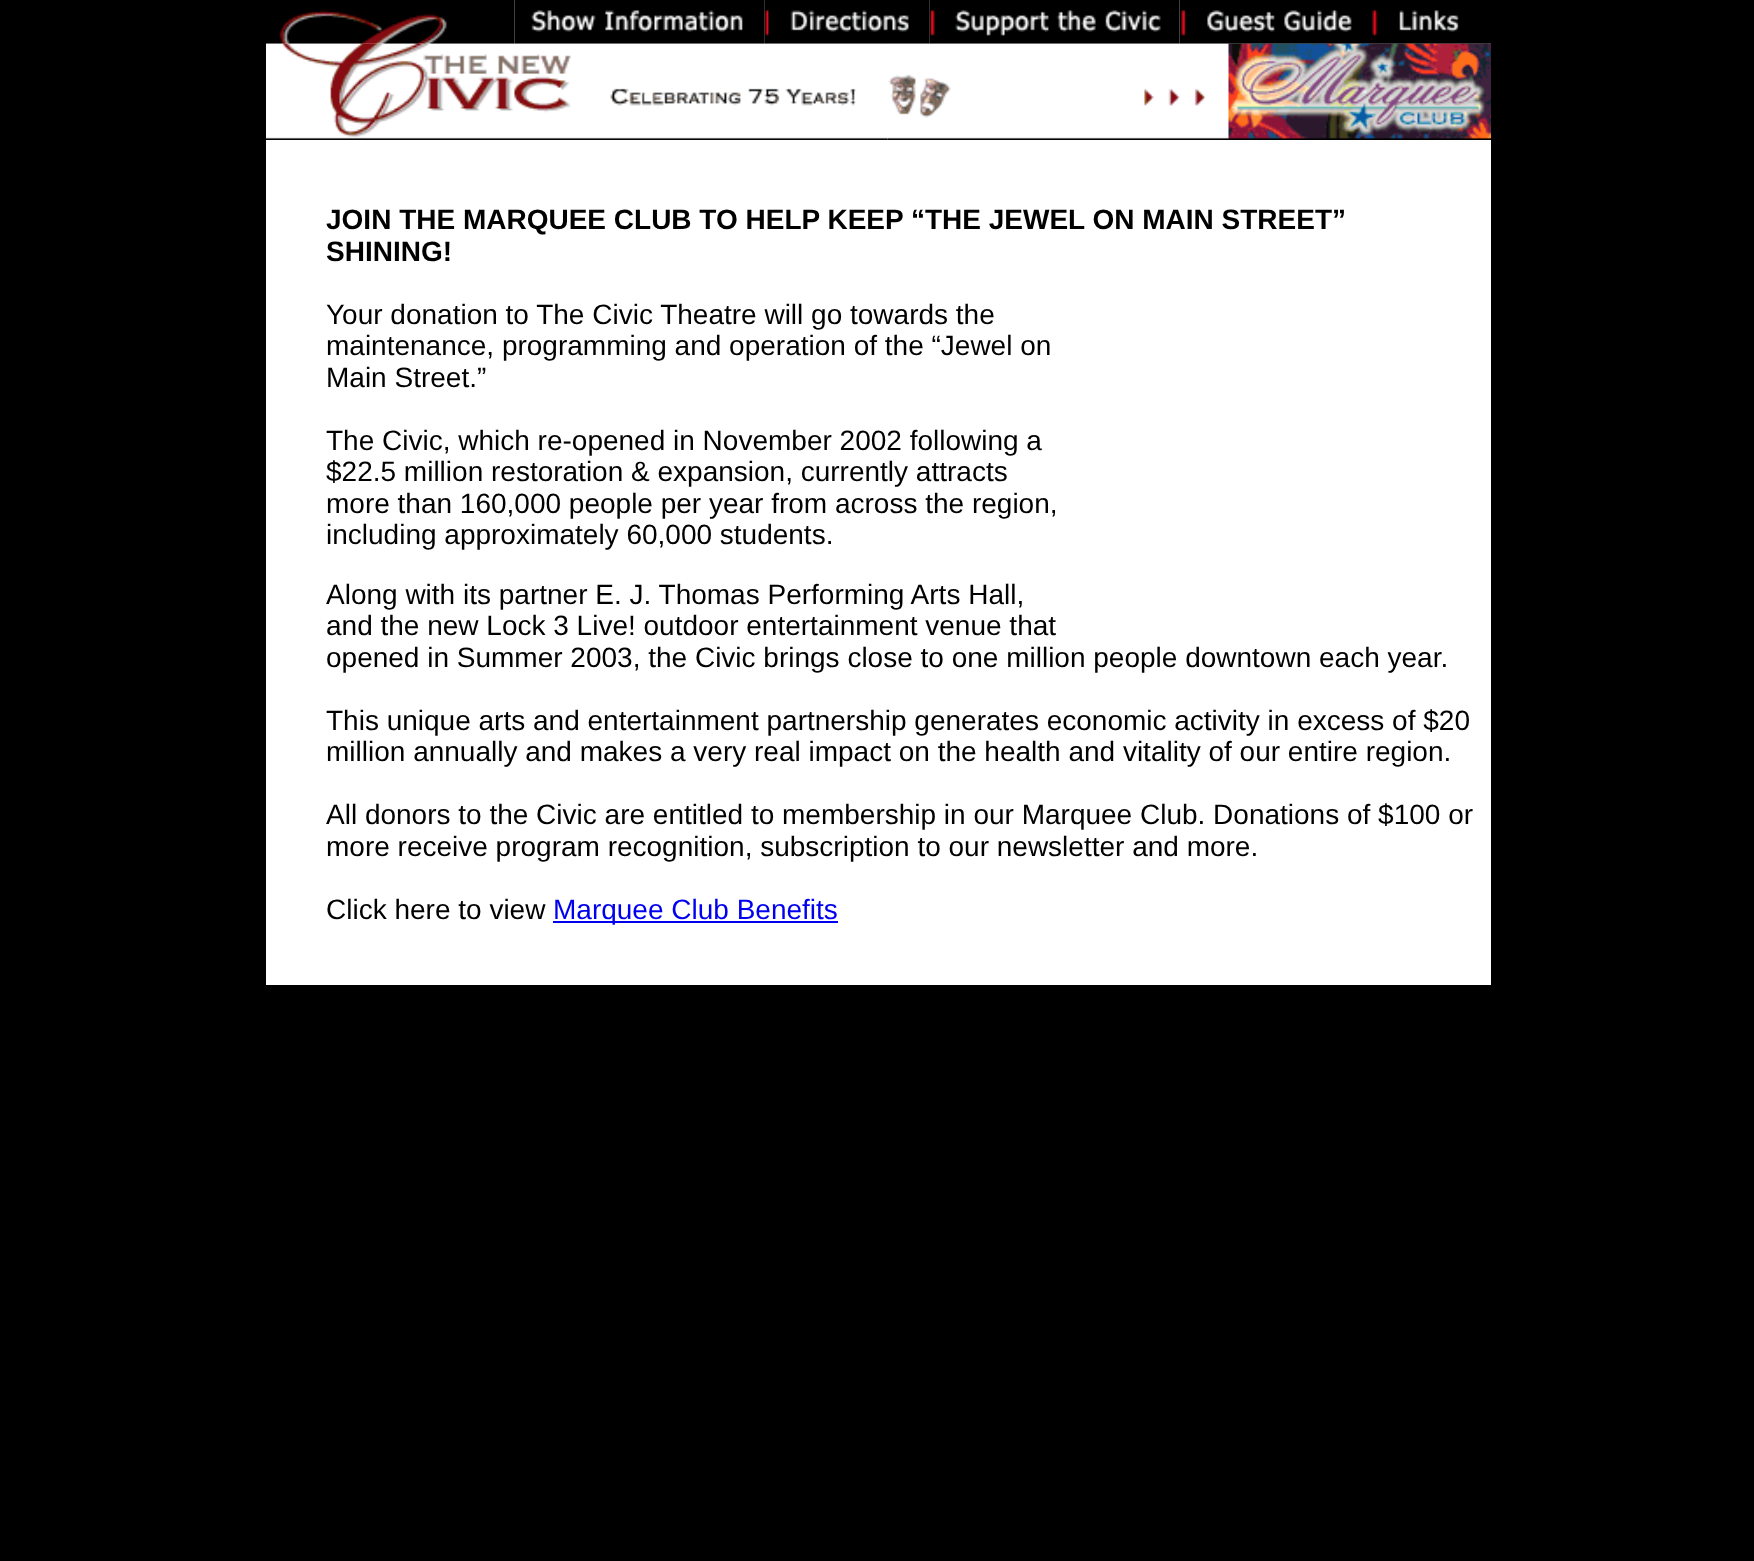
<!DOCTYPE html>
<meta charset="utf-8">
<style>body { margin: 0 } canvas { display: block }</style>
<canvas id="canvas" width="1754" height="1561"></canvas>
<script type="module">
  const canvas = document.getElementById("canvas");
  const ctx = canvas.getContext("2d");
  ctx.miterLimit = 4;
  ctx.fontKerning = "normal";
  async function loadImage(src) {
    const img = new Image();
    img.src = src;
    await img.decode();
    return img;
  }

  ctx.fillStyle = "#000000";
  ctx.fillRect(0, 0, 1754, 1561);
  ctx.fillStyle = "#ffffff";
  ctx.fillRect(266, 0, 1225, 985);
  ctx.drawImage(await loadImage("img1.png"), 266, 0, 249, 44);
  ctx.drawImage(await loadImage("img2.png"), 514, 0, 251, 44);
  ctx.drawImage(await loadImage("img3.png"), 764, 0, 166, 44);
  ctx.drawImage(await loadImage("img4.png"), 929, 0, 251, 44);
  ctx.drawImage(await loadImage("img5.png"), 1179, 0, 193, 44);
  ctx.drawImage(await loadImage("img6.png"), 1372, 0, 119, 44);
  ctx.drawImage(await loadImage("img7.png"), 266, 43, 622, 97);
  ctx.drawImage(await loadImage("img8.png"), 887, 43, 604, 97);
  ctx.font = "bold 28px Liberation Sans";
  ctx.fillStyle = "#000000";
  ctx.fillText("JOIN THE MARQUEE CLUB TO HELP KEEP “THE JEWEL ON MAIN STREET”", 326, 229);
  ctx.fillText("SHINING!", 326, 261);
  ctx.font = "28px Liberation Sans";
  ctx.fillText("Your donation to The Civic Theatre will go towards the", 326, 324);
  ctx.fillText("maintenance, programming and operation of the “Jewel on", 326, 355);
  ctx.fillText("Main Street.”", 326, 387);
  ctx.fillText("The Civic, which re-opened in November 2002 following a", 326, 450);
  ctx.fillText("$22.5 million restoration & expansion, currently attracts", 326, 481);
  ctx.fillText("more than 160,000 people per year from across the region,", 326, 513);
  ctx.fillText("including approximately 60,000 students.", 326, 544);
  ctx.fillText("Along with its partner E. J. Thomas Performing Arts Hall,", 326, 604);
  ctx.fillText("and the new Lock 3 Live! outdoor entertainment venue that", 326, 635);
  ctx.fillText("opened in Summer 2003, the Civic brings close to one million people downtown each year.", 326, 667);
  ctx.fillText("This unique arts and entertainment partnership generates economic activity in excess of $20", 326, 730);
  ctx.fillText("million annually and makes a very real impact on the health and vitality of our entire region.", 326, 761);
  ctx.fillText("All donors to the Civic are entitled to membership in our Marquee Club. Donations of $100 or", 326, 824);
  ctx.fillText("more receive program recognition, subscription to our newsletter and more.", 326, 856);
  ctx.fillText("Click here to view", 326, 919);
  ctx.fillStyle = "#0000ee";
  ctx.fillRect(553, 921, 285, 2);
  ctx.fillText("Marquee Club Benefits", 553, 919);
</script>
